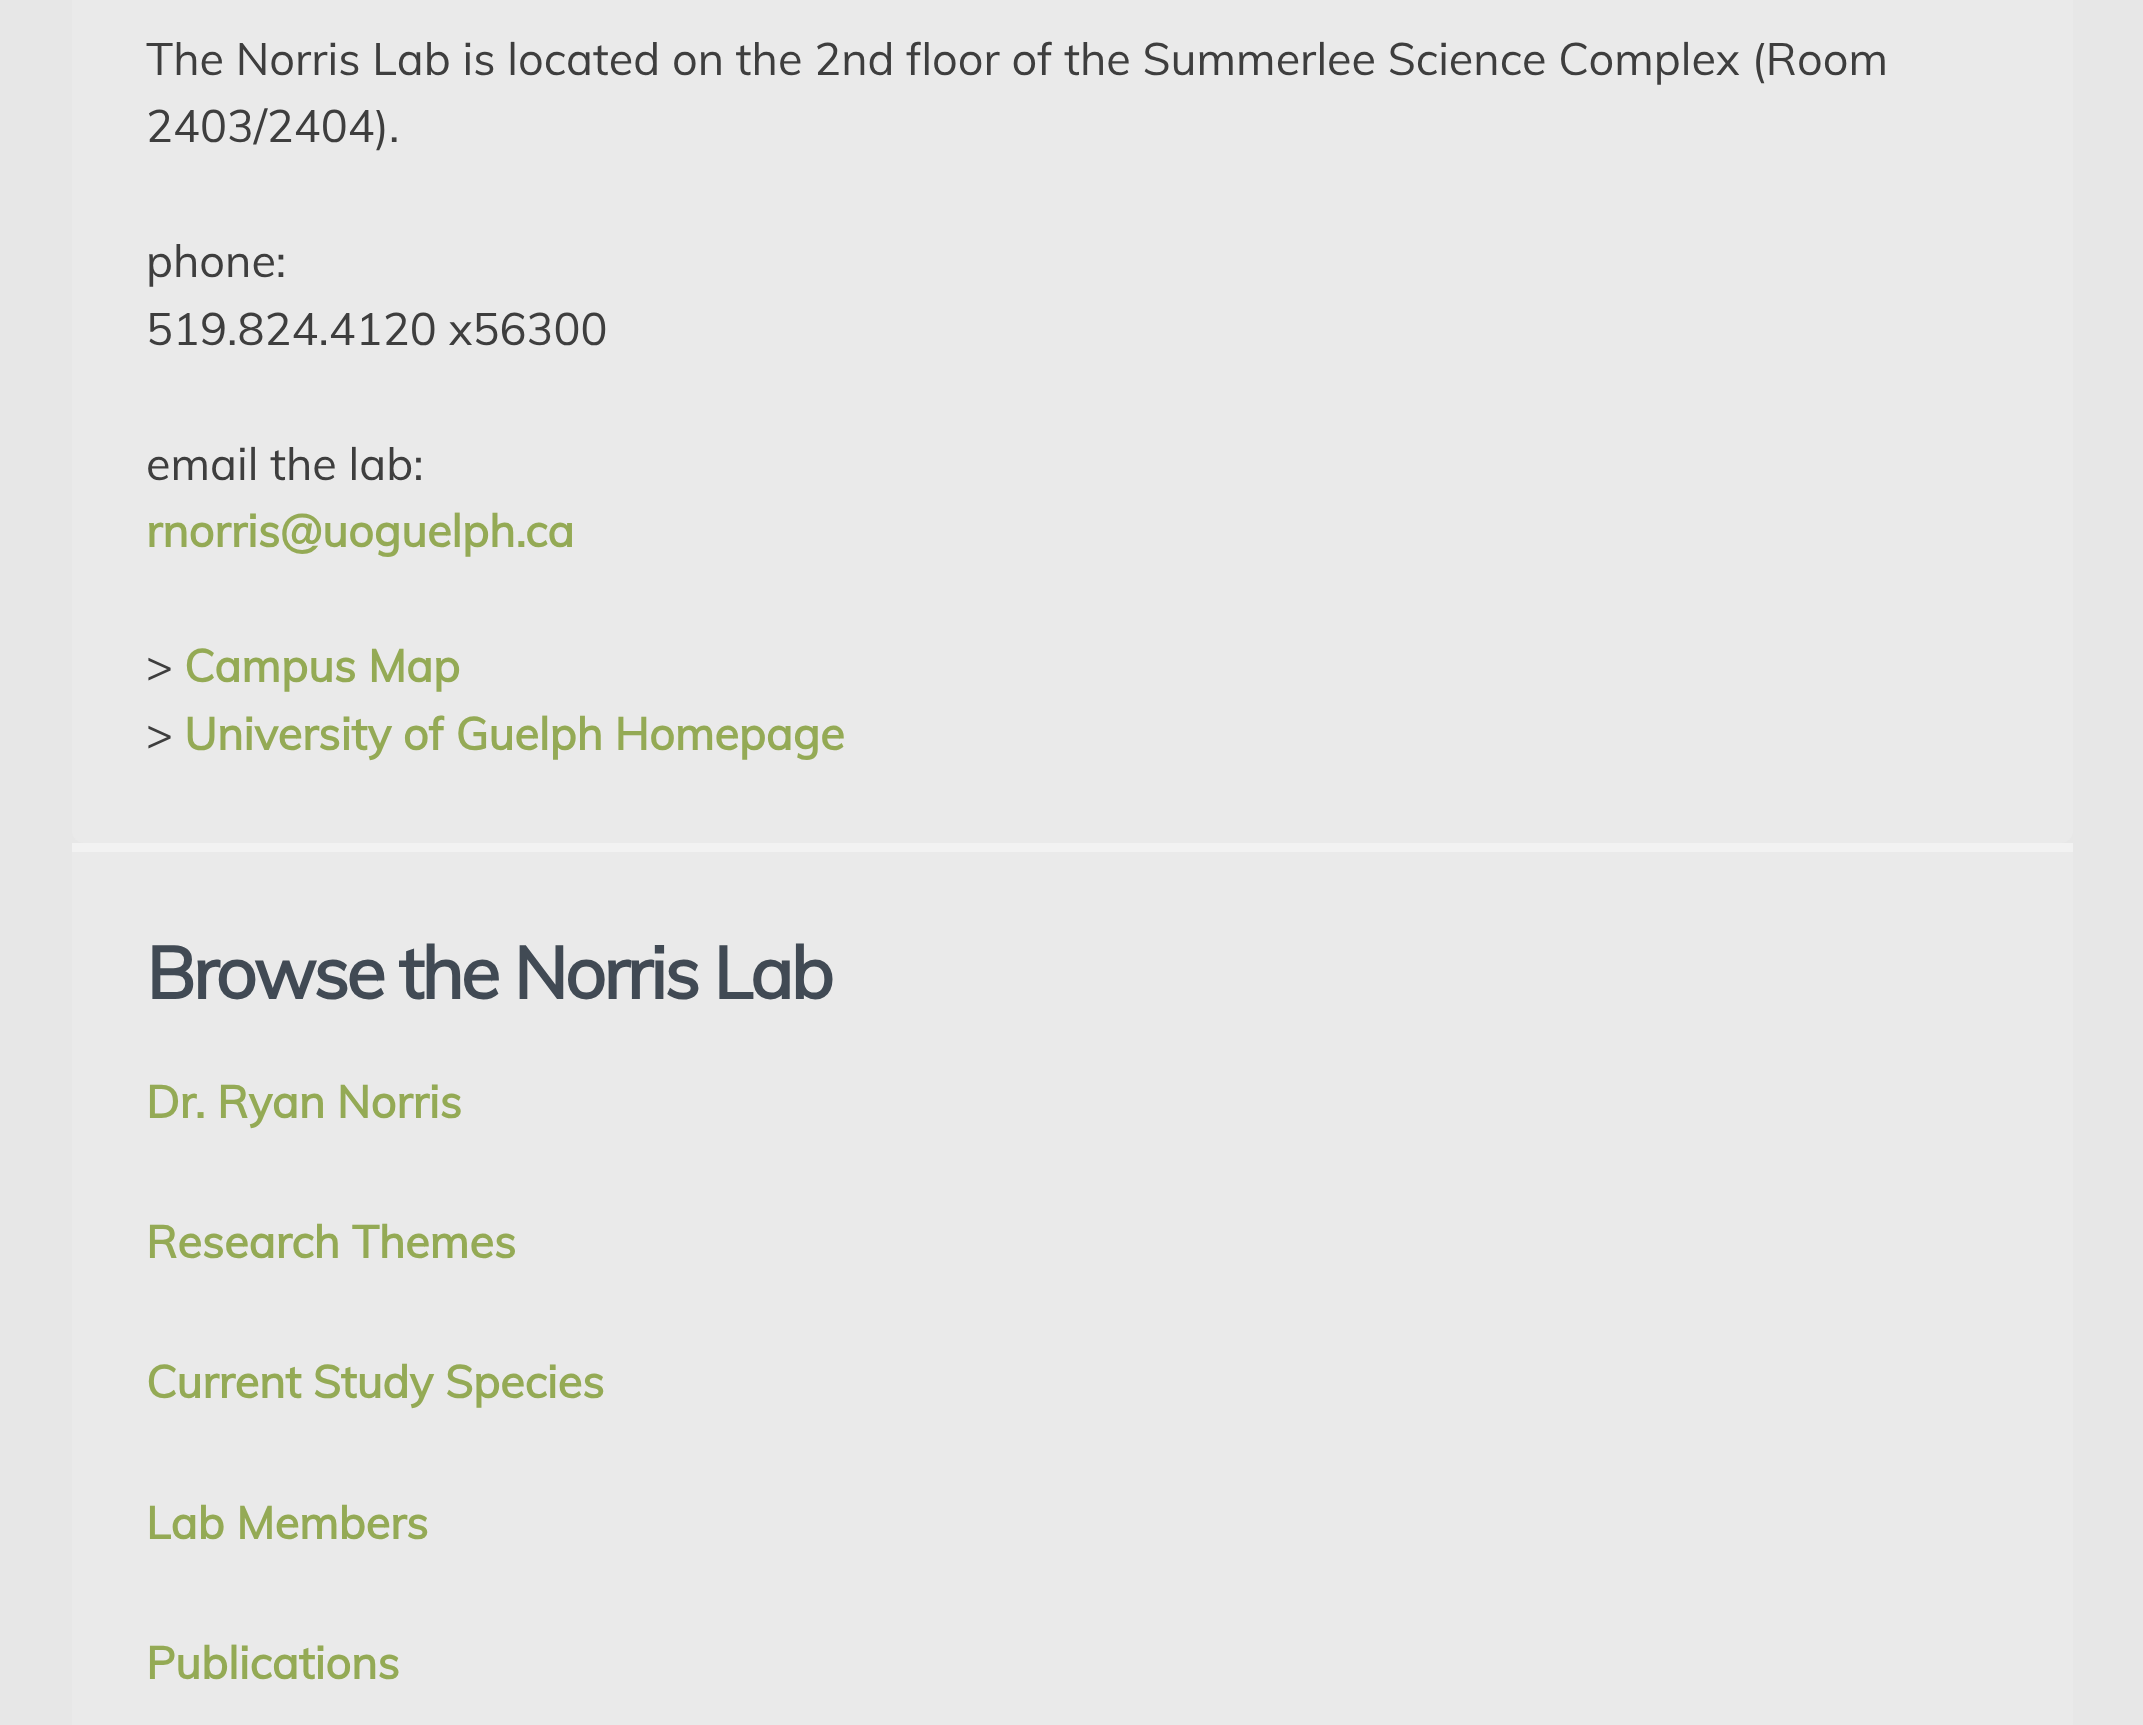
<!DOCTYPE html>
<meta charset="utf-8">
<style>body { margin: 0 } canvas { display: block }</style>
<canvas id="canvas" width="2143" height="1725"></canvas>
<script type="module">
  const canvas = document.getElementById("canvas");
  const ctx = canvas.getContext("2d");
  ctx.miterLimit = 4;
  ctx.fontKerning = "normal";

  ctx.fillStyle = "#e7e7e7";
  ctx.fillRect(0, 0, 2143, 1725);
  ctx.fillStyle = "#eaeaea";
  ctx.beginPath();
  ctx.moveTo(72, -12);
  ctx.lineTo(2073, -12);
  ctx.lineTo(2073, 831);
  ctx.bezierCurveTo(2073, 837.5, 2067.5, 843, 2061, 843);
  ctx.lineTo(84, 843);
  ctx.bezierCurveTo(77.5, 843, 72, 837.5, 72, 831);
  ctx.closePath();
  ctx.fill();
  ctx.font = "45px Muli";
  ctx.fillStyle = "#3e3e3e";
  ctx.fillText("The Norris Lab is located on the 2nd floor of the Summerlee Science Complex (Room", 146, 75);
  ctx.fillText("2403/2404).", 146, 142);
  ctx.fillText("phone:", 146, 277);
  ctx.fillText("519.824.4120 x56300", 146, 345);
  ctx.fillText("email the lab:", 146, 480);
  ctx.font = "bold 45px Muli";
  ctx.fillStyle = "#94aa55";
  ctx.fillText("rnorris@uoguelph.ca", 146, 547);
  ctx.font = "45px Muli";
  ctx.fillStyle = "#3e3e3e";
  ctx.fillText(">", 146, 682);
  ctx.font = "bold 45px Muli";
  ctx.fillStyle = "#94aa55";
  ctx.fillText("Campus Map", 184, 682);
  ctx.font = "45px Muli";
  ctx.fillStyle = "#3e3e3e";
  ctx.fillText(">", 146, 750);
  ctx.font = "bold 45px Muli";
  ctx.fillStyle = "#94aa55";
  ctx.fillText("University of Guelph Homepage", 184, 750);
  ctx.fillStyle = "#eaeaea";
  ctx.fillRect(72, 852, 2001, 873);
  ctx.fillStyle = "#f2f2f2";
  ctx.fillRect(72, 843, 2001, 9);
  ctx.letterSpacing = "-3px";
  ctx.font = "bold 72.75px Muli";
  ctx.fillStyle = "#414a54";
  ctx.fillText("Browse the Norris Lab", 146, 999);
  ctx.letterSpacing = "0px";
  ctx.font = "bold 45px Muli";
  ctx.fillStyle = "#94aa55";
  ctx.fillText("Dr. Ryan Norris", 146, 1118);
  ctx.fillText("Research Themes", 146, 1258);
  ctx.fillText("Current Study Species", 146, 1398);
  ctx.fillText("Lab Members", 146, 1539);
  ctx.fillText("Publications", 146, 1679);
</script>
